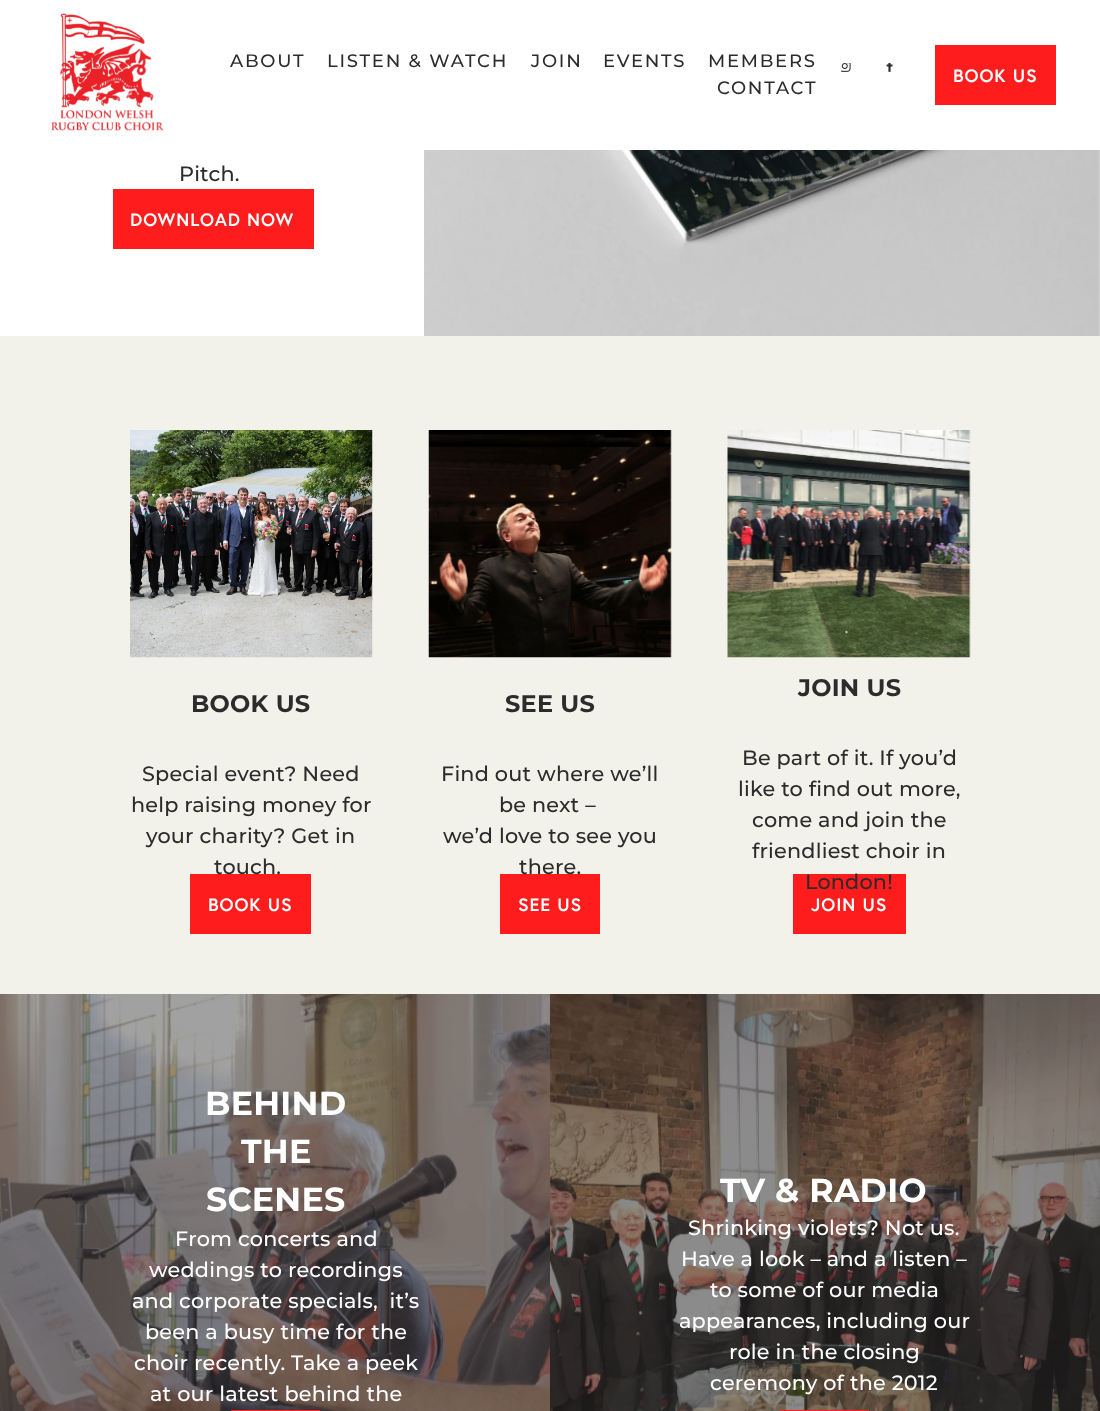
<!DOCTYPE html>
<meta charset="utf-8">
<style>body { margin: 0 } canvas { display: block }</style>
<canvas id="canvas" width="1100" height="1411"></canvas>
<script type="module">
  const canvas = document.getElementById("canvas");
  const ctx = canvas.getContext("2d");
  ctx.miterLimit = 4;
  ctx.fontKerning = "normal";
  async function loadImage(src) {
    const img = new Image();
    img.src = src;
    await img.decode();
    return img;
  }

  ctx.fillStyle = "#ffffff";
  ctx.fillRect(0, 0, 1100, 1411);
  ctx.drawImage(await loadImage("img1.png"), 51, 13, 113, 118);
  ctx.letterSpacing = "1.75px";
  ctx.font = "500 18px Montserrat";
  ctx.fillStyle = "#2d2c2c";
  ctx.fillText("ABOUT", 230, 67);
  ctx.fillText("LISTEN & WATCH", 327, 67);
  ctx.fillText("JOIN", 531, 67);
  ctx.fillText("EVENTS", 603, 67);
  ctx.fillText("MEMBERS", 708, 67);
  ctx.fillText("CONTACT", 717, 94);
  ctx.drawImage(await loadImage("img2.png"), 841, 63, 10, 9);
  ctx.drawImage(await loadImage("img3.png"), 886, 63, 7, 9);
  ctx.fillStyle = "#ff1c1c";
  ctx.fillRect(935, 45, 121, 60);
  ctx.letterSpacing = "0.9px";
  ctx.font = "bold 18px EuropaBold";
  ctx.fillStyle = "#ffffff";
  ctx.fillText("BOOK US", 953, 82);
  ctx.letterSpacing = "0.2px";
  ctx.font = "500 20.75px Montserrat";
  ctx.fillStyle = "#2d2c2c";
  ctx.fillText("Pitch.", 179, 181);
  ctx.drawImage(await loadImage("img4.png"), 424, 150, 676, 186);
  ctx.fillStyle = "#ff1c1c";
  ctx.fillRect(113, 189, 201, 60);
  ctx.letterSpacing = "0.9px";
  ctx.font = "bold 18px EuropaBold";
  ctx.fillStyle = "#ffffff";
  ctx.fillText("DOWNLOAD NOW", 130, 226);
  ctx.fillStyle = "#f2f2ea";
  ctx.fillRect(0, 336, 1100, 658);
  ctx.drawImage(await loadImage("img5.png"), 130, 430, 243, 228);
  ctx.drawImage(await loadImage("img6.png"), 428, 430, 244, 228);
  ctx.drawImage(await loadImage("img7.png"), 727, 430, 244, 228);
  ctx.letterSpacing = "0.25px";
  ctx.font = "bold 24px Montserrat";
  ctx.fillStyle = "#2d2c2c";
  ctx.fillText("BOOK US", 191, 712);
  ctx.letterSpacing = "0.2px";
  ctx.font = "500 20.75px Montserrat";
  ctx.fillText("Special event? Need", 142, 781);
  ctx.fillText("help raising money for", 131, 812);
  ctx.fillText("your charity? Get in", 146, 843);
  ctx.fillStyle = "#ff1c1c";
  ctx.fillRect(190, 874, 121, 60);
  ctx.fillStyle = "#2d2c2c";
  ctx.fillText("touch.", 214, 874);
  ctx.letterSpacing = "0.25px";
  ctx.font = "bold 24px Montserrat";
  ctx.fillText("SEE US", 505, 712);
  ctx.letterSpacing = "0.2px";
  ctx.font = "500 20.75px Montserrat";
  ctx.fillText("Find out where we’ll", 441, 781);
  ctx.fillText("be next –", 499, 812);
  ctx.fillText("we’d love to see you", 443, 843);
  ctx.fillStyle = "#ff1c1c";
  ctx.fillRect(500, 874, 100, 60);
  ctx.fillStyle = "#2d2c2c";
  ctx.fillText("there.", 519, 874);
  ctx.letterSpacing = "0.25px";
  ctx.font = "bold 24px Montserrat";
  ctx.fillText("JOIN US", 798, 696);
  ctx.letterSpacing = "0.2px";
  ctx.font = "500 20.75px Montserrat";
  ctx.fillText("Be part of it. If you’d", 742, 765);
  ctx.fillText("like to find out more,", 738, 796);
  ctx.fillText("come and join the", 752, 827);
  ctx.fillText("friendliest choir in", 752, 858);
  ctx.fillStyle = "#ff1c1c";
  ctx.fillRect(793, 874, 113, 60);
  ctx.fillStyle = "#2d2c2c";
  ctx.fillText("London!", 805, 889);
  ctx.letterSpacing = "0.9px";
  ctx.font = "bold 18px EuropaBold";
  ctx.fillStyle = "#ffffff";
  ctx.fillText("BOOK US", 208, 911);
  ctx.fillText("SEE US", 518, 911);
  ctx.fillText("JOIN US", 811, 911);
  ctx.drawImage(await loadImage("img8.png"), 0, 994, 550, 417);
  ctx.drawImage(await loadImage("img9.png"), 550, 994, 550, 417);
  ctx.letterSpacing = "0.25px";
  ctx.font = "bold 33.25px Montserrat";
  ctx.fillText("BEHIND", 205, 1115);
  ctx.fillText("THE", 241, 1163);
  ctx.fillText("SCENES", 206, 1211);
  ctx.fillText("TV & RADIO", 720, 1202);
  ctx.letterSpacing = "0.2px";
  ctx.font = "500 20.75px Montserrat";
  ctx.fillText("From concerts and", 175, 1246);
  ctx.fillText("weddings to recordings", 149, 1277);
  ctx.fillText("and corporate specials,  it’s", 132, 1308);
  ctx.fillText("been a busy time for the", 145, 1339);
  ctx.fillText("choir recently. Take a peek", 134, 1370);
  ctx.fillText("at our latest behind the", 150, 1401);
  ctx.fillText("Shrinking violets? Not us.", 688, 1235);
  ctx.fillText("Have a look – and a listen –", 681, 1266);
  ctx.fillText("to some of our media", 710, 1297);
  ctx.fillText("appearances, including our", 679, 1328);
  ctx.fillText("role in the closing", 729, 1359);
  ctx.fillText("ceremony of the 2012", 710, 1390);
  ctx.fillStyle = "#ff1c1c";
  ctx.fillRect(231, 1410, 89, 1);
  ctx.fillRect(780, 1410, 89, 1);
</script>
